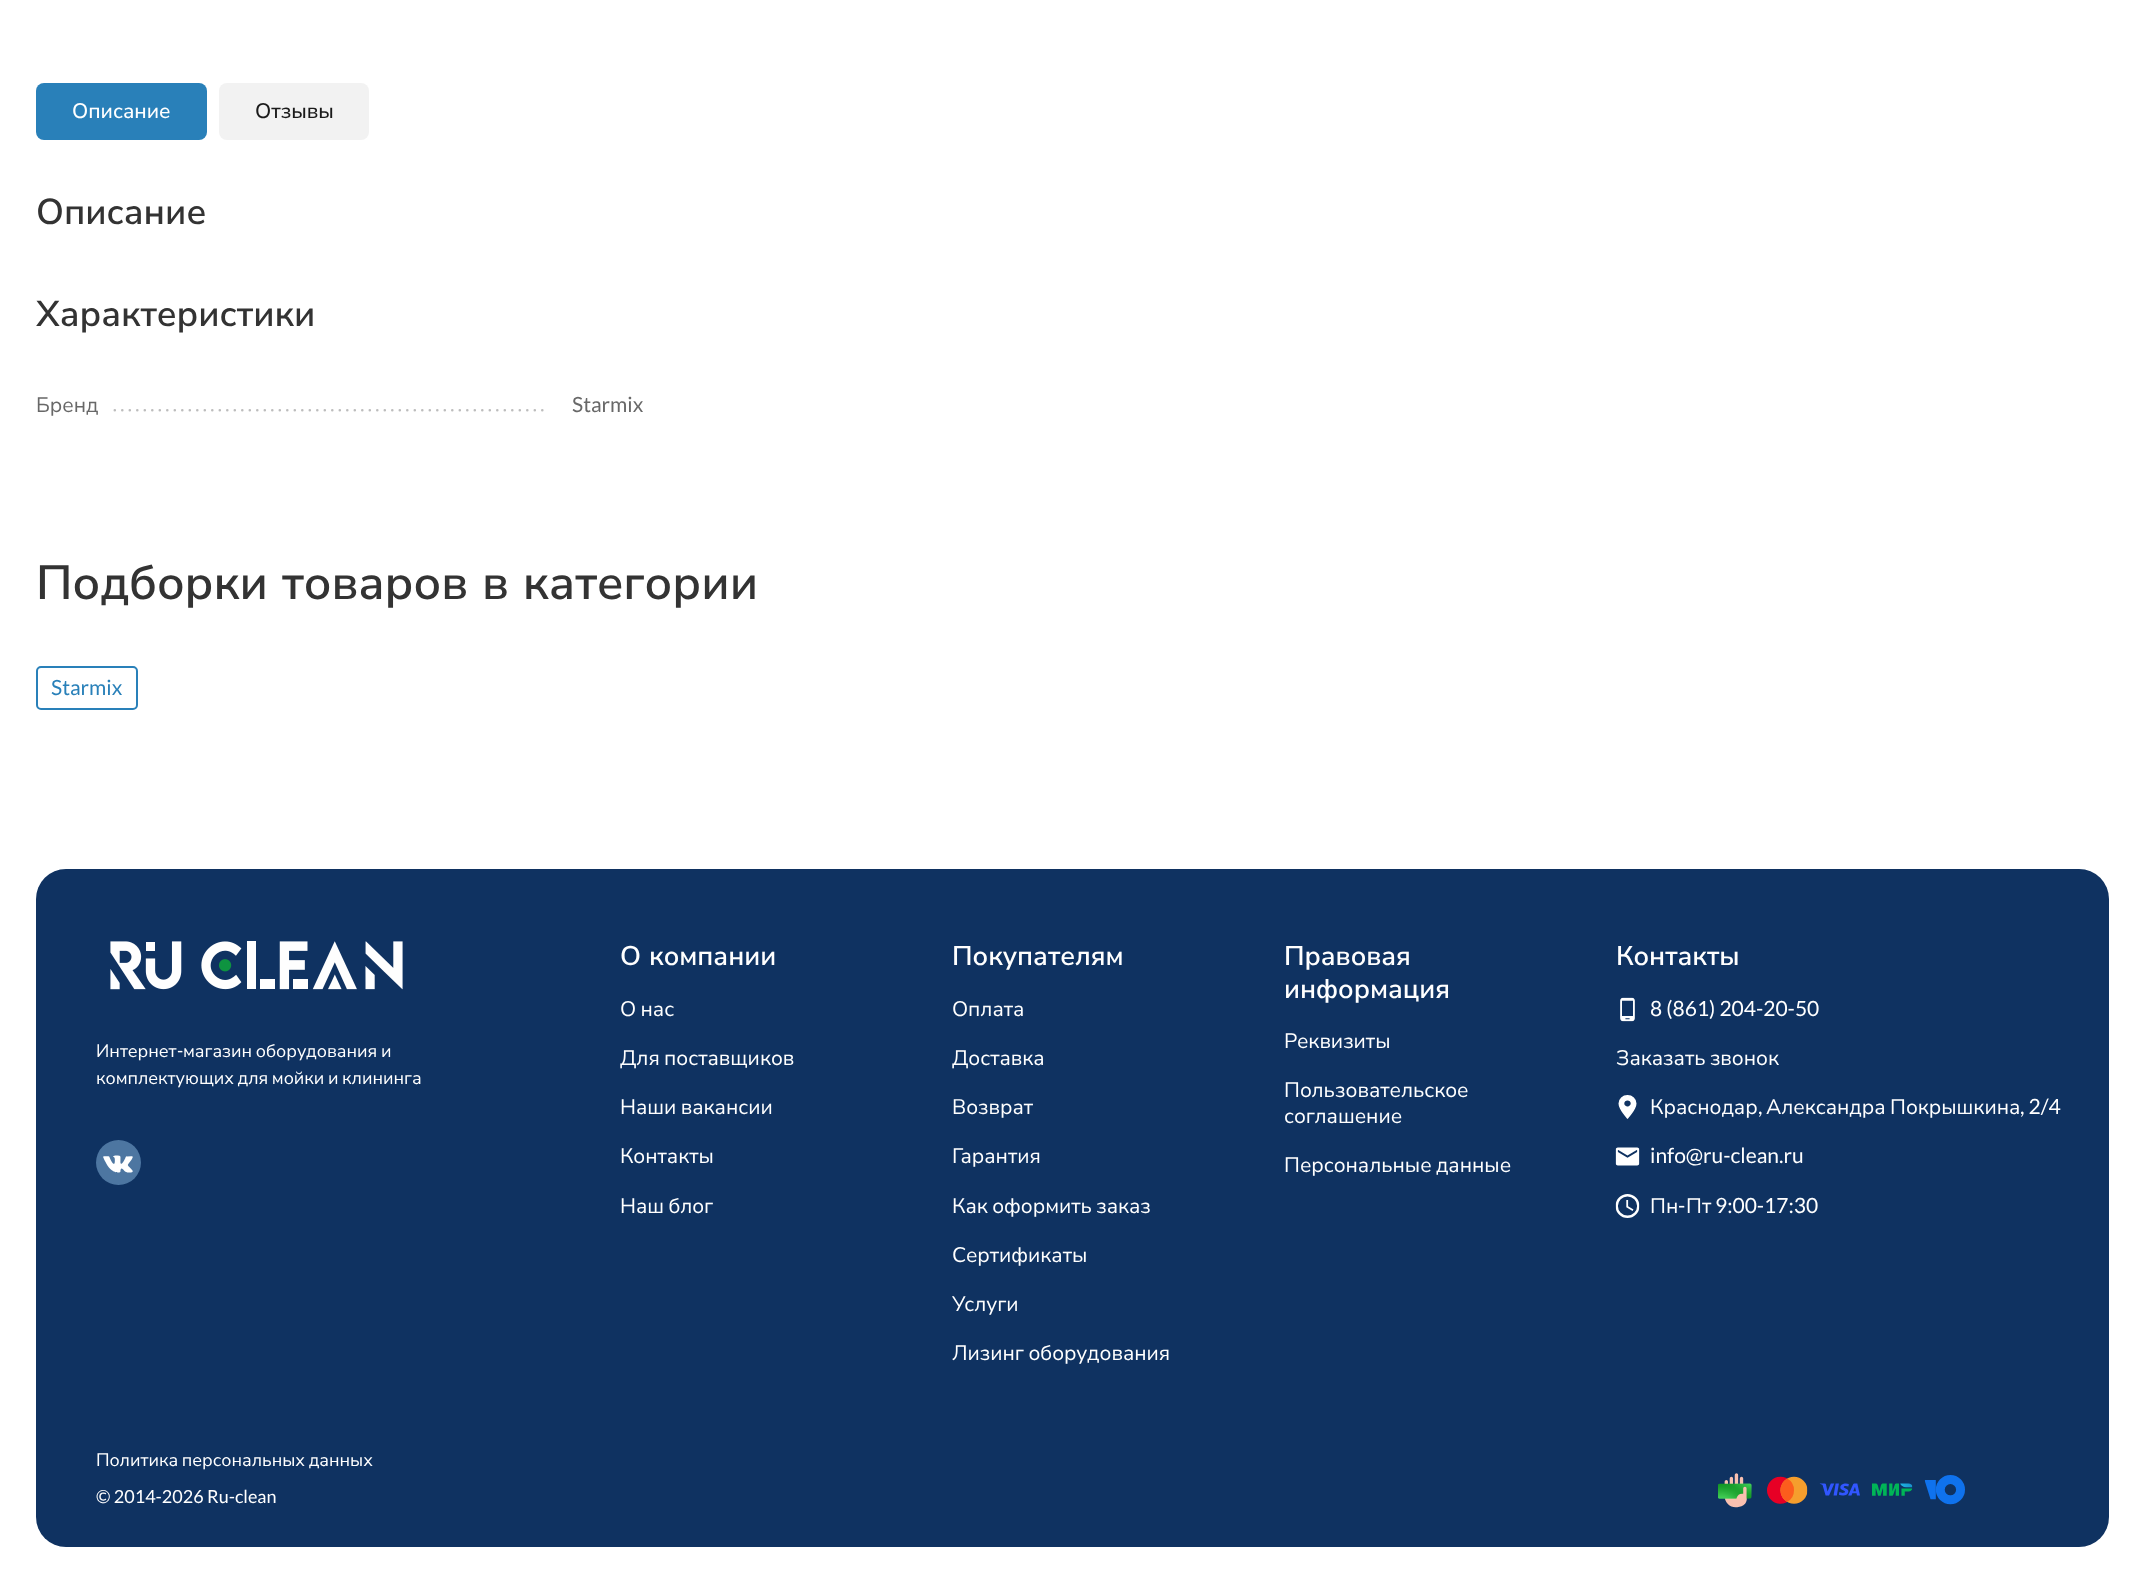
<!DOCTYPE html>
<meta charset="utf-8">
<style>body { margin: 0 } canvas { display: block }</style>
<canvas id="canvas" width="2144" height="1582"></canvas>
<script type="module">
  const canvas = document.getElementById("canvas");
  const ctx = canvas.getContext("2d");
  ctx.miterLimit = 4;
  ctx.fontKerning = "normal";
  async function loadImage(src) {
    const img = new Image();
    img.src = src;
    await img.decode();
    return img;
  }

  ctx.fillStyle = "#ffffff";
  ctx.fillRect(0, 0, 2144, 1582);
  ctx.fillStyle = "#2980b9";
  ctx.beginPath();
  ctx.roundRect(36, 83, 171, 57, 8);
  ctx.fill();
  ctx.font = "500 21px Nunito Sans";
  ctx.fillStyle = "#ffffff";
  ctx.fillText("Описание", 72, 118);
  ctx.fillStyle = "#f2f2f2";
  ctx.beginPath();
  ctx.roundRect(219, 83, 150, 57, 8);
  ctx.fill();
  ctx.fillStyle = "#1b1b1b";
  ctx.fillText("Отзывы", 255, 118);
  ctx.font = "600 36px Nunito Sans";
  ctx.fillStyle = "#333333";
  ctx.fillText("Описание", 36, 224);
  ctx.fillText("Характеристики", 36, 326);
  ctx.beginPath();
  ctx.moveTo(39.8, 410.2);
  ctx.lineTo(542.5, 410.2);
  ctx.strokeStyle = "#bdbdbd";
  ctx.lineWidth = 2.6;
  ctx.lineCap = "round";
  ctx.setLineDash([0, 7.5]);
  ctx.stroke();
  ctx.fillStyle = "#ffffff";
  ctx.fillRect(38, 408, 71, 4);
  ctx.font = "21px Nunito Sans";
  ctx.fillStyle = "#686868";
  ctx.fillText("Бренд", 36, 412);
  ctx.font = "21px Lato";
  ctx.fillText("Starmix", 572, 412);
  ctx.wordSpacing = "1.5px";
  ctx.font = "600 48px Nunito Sans";
  ctx.fillStyle = "#333333";
  ctx.fillText("Подборки товаров в категории", 36, 599);
  ctx.beginPath();
  ctx.roundRect(37, 667, 100, 42, 4);
  ctx.strokeStyle = "#2980b9";
  ctx.lineWidth = 2;
  ctx.setLineDash([]);
  ctx.stroke();
  ctx.wordSpacing = "0px";
  ctx.font = "21px Lato";
  ctx.fillStyle = "#2980b9";
  ctx.fillText("Starmix", 51, 695);
  ctx.fillStyle = "#0f3261";
  ctx.beginPath();
  ctx.roundRect(36, 869, 2073, 678, 30);
  ctx.fill();
  ctx.drawImage(await loadImage("img1.png"), 110, 941, 293, 49);
  ctx.font = "18px Nunito Sans";
  ctx.fillStyle = "#ffffff";
  ctx.fillText("Интернет", 96, 1057);
  ctx.font = "18px Lato";
  ctx.fillText("-", 177, 1057);
  ctx.wordSpacing = "-1px";
  ctx.font = "18px Nunito Sans";
  ctx.fillText("магазин оборудования и", 183, 1057);
  ctx.fillText("комплектующих для мойки и клининга", 96, 1084);
  ctx.drawImage(await loadImage("img2.png"), 96, 1140, 45, 45);
  ctx.wordSpacing = "1px";
  ctx.font = "600 27px Nunito Sans";
  ctx.fillText("О компании", 620, 965);
  ctx.wordSpacing = "-1px";
  ctx.font = "21px Nunito Sans";
  ctx.fillText("О нас", 620, 1016);
  ctx.fillText("Для поставщиков", 620, 1065);
  ctx.fillText("Наши вакансии", 620, 1114);
  ctx.wordSpacing = "0px";
  ctx.fillText("Контакты", 620, 1163);
  ctx.wordSpacing = "-1px";
  ctx.fillText("Наш блог", 620, 1213);
  ctx.wordSpacing = "0px";
  ctx.font = "600 27px Nunito Sans";
  ctx.fillText("Покупателям", 952, 965);
  ctx.font = "21px Nunito Sans";
  ctx.fillText("Оплата", 952, 1016);
  ctx.fillText("Доставка", 952, 1065);
  ctx.fillText("Возврат", 952, 1114);
  ctx.fillText("Гарантия", 952, 1163);
  ctx.wordSpacing = "-1px";
  ctx.fillText("Как оформить заказ", 952, 1213);
  ctx.wordSpacing = "0px";
  ctx.fillText("Сертификаты", 952, 1262);
  ctx.fillText("Услуги", 952, 1311);
  ctx.wordSpacing = "-1px";
  ctx.fillText("Лизинг оборудования", 952, 1360);
  ctx.wordSpacing = "0px";
  ctx.font = "600 27px Nunito Sans";
  ctx.fillText("Правовая", 1284, 965);
  ctx.fillText("информация", 1284, 998);
  ctx.font = "21px Nunito Sans";
  ctx.fillText("Реквизиты", 1284, 1048);
  ctx.fillText("Пользовательское", 1284, 1097);
  ctx.fillText("соглашение", 1284, 1123);
  ctx.wordSpacing = "-1px";
  ctx.fillText("Персональные данные", 1284, 1172);
  ctx.wordSpacing = "0px";
  ctx.font = "600 27px Nunito Sans";
  ctx.fillText("Контакты", 1616, 965);
  ctx.drawImage(await loadImage("img3.png"), 1620, 997, 15, 25);
  ctx.font = "21px Lato";
  ctx.fillText("8 (861) 204-20-50", 1650, 1016);
  ctx.wordSpacing = "-1px";
  ctx.font = "21px Nunito Sans";
  ctx.fillText("Заказать звонок", 1616, 1065);
  ctx.drawImage(await loadImage("img4.png"), 1618, 1095, 19, 24);
  ctx.wordSpacing = "0px";
  ctx.fillText("Краснодар", 1650, 1114);
  ctx.font = "21px Lato";
  ctx.fillText(",", 1758, 1114);
  ctx.font = "21px Nunito Sans";
  ctx.fillText("Александра", 1766, 1114);
  ctx.fillText("Покрышкина", 1890, 1114);
  ctx.font = "21px Lato";
  ctx.fillText(", 2/4", 2020, 1114);
  ctx.drawImage(await loadImage("img5.png"), 1615, 1147, 25, 19);
  ctx.fillText("info@ru-clean.ru", 1650, 1163);
  ctx.drawImage(await loadImage("img6.png"), 1615, 1194, 25, 24);
  ctx.font = "21px Nunito Sans";
  ctx.fillText("Пн", 1650, 1213);
  ctx.font = "21px Lato";
  ctx.fillText("-", 1678, 1213);
  ctx.font = "21px Nunito Sans";
  ctx.fillText("Пт", 1686, 1213);
  ctx.font = "21px Lato";
  ctx.fillText("9:00-17:30", 1715, 1213);
  ctx.wordSpacing = "-1px";
  ctx.font = "18px Nunito Sans";
  ctx.fillText("Политика персональных данных", 96, 1466);
  ctx.wordSpacing = "0px";
  ctx.font = "18px Lato";
  ctx.fillText("© 2014-2026 Ru-clean", 96, 1503);
  ctx.drawImage(await loadImage("img7.png"), 1718, 1473, 34, 35);
  ctx.drawImage(await loadImage("img8.png"), 1767, 1476, 41, 28);
  ctx.drawImage(await loadImage("img9.png"), 1819, 1483, 41, 13);
  ctx.drawImage(await loadImage("img10.png"), 1872, 1483, 41, 13);
  ctx.drawImage(await loadImage("img11.png"), 1924, 1475, 41, 30);
</script>
